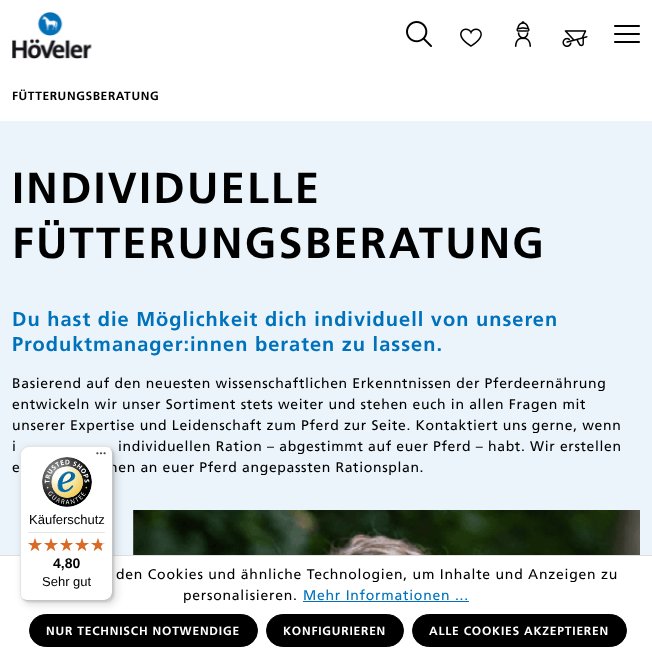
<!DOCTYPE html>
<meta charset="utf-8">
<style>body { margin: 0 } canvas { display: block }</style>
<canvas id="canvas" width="652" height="655"></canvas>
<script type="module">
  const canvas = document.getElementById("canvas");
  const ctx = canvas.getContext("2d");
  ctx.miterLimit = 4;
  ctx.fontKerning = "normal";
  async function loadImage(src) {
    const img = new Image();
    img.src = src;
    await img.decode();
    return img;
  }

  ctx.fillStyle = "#ffffff";
  ctx.fillRect(0, 0, 652, 655);
  ctx.drawImage(await loadImage("img1.png"), 12, 12, 80, 47);
  ctx.drawImage(await loadImage("img2.png"), 406, 21, 26, 26);
  ctx.drawImage(await loadImage("img3.png"), 460, 28, 22, 19);
  ctx.drawImage(await loadImage("img4.png"), 514, 21, 17, 26);
  ctx.drawImage(await loadImage("img5.png"), 562, 30, 26, 17);
  ctx.drawImage(await loadImage("img6.png"), 614, 25, 26, 18);
  ctx.letterSpacing = "0.6px";
  ctx.font = "bold 12px Frutiger";
  ctx.fillStyle = "#000000";
  ctx.fillText("FÜTTERUNGSBERATUNG", 12, 100);
  ctx.fillStyle = "#ebf4fa";
  ctx.fillRect(0, 121, 652, 434);
  ctx.letterSpacing = "2.2px";
  ctx.font = "bold 43.5px Frutiger";
  ctx.fillStyle = "#000000";
  ctx.fillText("INDIVIDUELLE", 12, 203);
  ctx.fillText("FÜTTERUNGSBERATUNG", 12, 258);
  ctx.letterSpacing = "1px";
  ctx.font = "bold 20px Frutiger";
  ctx.fillStyle = "#0072bb";
  ctx.fillText("Du hast die Möglichkeit dich individuell von unseren", 12, 326);
  ctx.fillText("Produktmanager:innen beraten zu lassen.", 12, 351);
  ctx.letterSpacing = "0.65px";
  ctx.font = "14px Frutiger";
  ctx.fillStyle = "#000000";
  ctx.fillText("Basierend auf den neuesten wissenschaftlichen Erkenntnissen der Pferdeernährung", 12, 388);
  ctx.fillText("entwickeln wir unser Sortiment stets weiter und stehen euch in allen Fragen mit", 12, 409);
  ctx.fillText("unserer Expertise und Leidenschaft zum Pferd zur Seite. Kontaktiert uns gerne, wenn", 12, 430);
  ctx.fillText("i", 12, 451);
  ctx.fillText("individuellen Ration – abgestimmt auf euer Pferd – habt. Wir erstellen", 118, 451);
  ctx.fillText("e", 12, 472);
  ctx.fillText("nen an euer Pferd angepassten Rationsplan.", 109, 472);
  ctx.drawImage(await loadImage("img7.png"), 133, 510, 507, 45);
  ctx.fillStyle = "#e3e0db";
  ctx.fillRect(0, 555, 652, 1);
  ctx.fillStyle = "#000000";
  ctx.beginPath();
  ctx.roundRect(29.5, 614.5, 228, 32, 16);
  ctx.fill();
  ctx.strokeStyle = "#000000";
  ctx.stroke();
  ctx.fillStyle = "rgba(0, 0, 0, 0.15)";
  ctx.filter = "blur(4px)";
  ctx.beginPath();
  ctx.roundRect(23, 449, 93, 155, 8);
  ctx.fill();
  ctx.filter = "none";
  ctx.filter = "blur(1px)";
  ctx.beginPath();
  ctx.roundRect(21, 447, 93, 155, 8);
  ctx.fill();
  ctx.filter = "none";
  ctx.fillStyle = "#ffffff";
  ctx.beginPath();
  ctx.roundRect(20, 446, 93, 155, 8);
  ctx.fill();
  ctx.fillStyle = "rgba(0, 0, 0, 0.1)";
  ctx.beginPath();
  ctx.moveTo(29, 447);
  ctx.lineTo(106, 447);
  ctx.bezierCurveTo(108, 447, 110, 448, 112, 450);
  ctx.bezierCurveTo(110, 448, 108, 446, 105, 446);
  ctx.lineTo(28, 446);
  ctx.bezierCurveTo(24, 446, 20, 450, 20, 454);
  ctx.lineTo(20, 593);
  ctx.bezierCurveTo(20, 596, 22, 598, 24, 600);
  ctx.bezierCurveTo(22, 598, 21, 596, 21, 594);
  ctx.lineTo(21, 455);
  ctx.bezierCurveTo(21, 451, 25, 447, 29, 447);
  ctx.closePath();
  ctx.fill();
  ctx.fillStyle = "rgba(0, 0, 0, 0.2)";
  ctx.beginPath();
  ctx.moveTo(21, 597);
  ctx.bezierCurveTo(23, 599, 25, 601, 28, 601);
  ctx.lineTo(105, 601);
  ctx.bezierCurveTo(109, 601, 113, 597, 113, 593);
  ctx.lineTo(113, 454);
  ctx.bezierCurveTo(113, 451, 111, 449, 109, 447);
  ctx.bezierCurveTo(111, 449, 112, 451, 112, 453);
  ctx.lineTo(112, 592);
  ctx.bezierCurveTo(112, 596, 108, 600, 104, 600);
  ctx.lineTo(27, 600);
  ctx.bezierCurveTo(25, 600, 23, 599, 21, 597);
  ctx.closePath();
  ctx.fill();
  ctx.fillStyle = "rgba(50, 50, 50, 0.2)";
  ctx.beginPath();
  ctx.moveTo(22, 598);
  ctx.bezierCurveTo(23, 600, 26, 601, 28, 601);
  ctx.lineTo(105, 601);
  ctx.bezierCurveTo(109, 601, 113, 597, 113, 593);
  ctx.lineTo(113, 454);
  ctx.bezierCurveTo(113, 452, 112, 449, 110, 448);
  ctx.bezierCurveTo(111, 449, 112, 451, 112, 453);
  ctx.lineTo(112, 592);
  ctx.bezierCurveTo(112, 597, 109, 600, 104, 600);
  ctx.lineTo(27, 600);
  ctx.bezierCurveTo(25, 600, 23, 599, 22, 598);
  ctx.closePath();
  ctx.fill();
  ctx.fillStyle = "rgba(255, 255, 255, 0.3)";
  ctx.beginPath();
  ctx.moveTo(112, 454);
  ctx.bezierCurveTo(112, 449, 109, 446, 104, 446);
  ctx.lineTo(105, 446);
  ctx.bezierCurveTo(109, 446, 113, 450, 113, 454);
  ctx.lineTo(113, 593);
  ctx.bezierCurveTo(113, 597, 109, 601, 105, 601);
  ctx.lineTo(28, 601);
  ctx.bezierCurveTo(24, 601, 20, 597, 20, 593);
  ctx.lineTo(20, 592);
  ctx.bezierCurveTo(20, 597, 23, 600, 28, 600);
  ctx.lineTo(104, 600);
  ctx.bezierCurveTo(109, 600, 112, 597, 112, 592);
  ctx.closePath();
  ctx.fill();
  ctx.drawImage(await loadImage("img8.png"), 96, 452, 10, 3);
  ctx.drawImage(await loadImage("img9.png"), 42, 457, 50, 50);
  ctx.letterSpacing = "0px";
  ctx.font = "13px Liberation Sans";
  ctx.fillStyle = "#000000";
  ctx.fillText("Käuferschutz", 29, 524);
  ctx.fillStyle = "#e5e5e5";
  ctx.fillRect(28, 532, 77, 1);
  ctx.drawImage(await loadImage("img10.png"), 28, 538, 14, 13);
  ctx.drawImage(await loadImage("img10.png"), 44, 538, 14, 13);
  ctx.drawImage(await loadImage("img11.png"), 60, 538, 13, 13);
  ctx.drawImage(await loadImage("img10.png"), 75, 538, 14, 13);
  ctx.drawImage(await loadImage("img10.png"), 91, 538, 14, 13);
  ctx.drawImage(await loadImage("img12.png"), 28, 538, 14, 13);
  ctx.drawImage(await loadImage("img12.png"), 44, 538, 14, 13);
  ctx.drawImage(await loadImage("img13.png"), 60, 538, 13, 13);
  ctx.drawImage(await loadImage("img12.png"), 75, 538, 14, 13);
  ctx.drawImage(await loadImage("img14.png"), 91, 538, 11, 13);
  ctx.font = "bold 14px Liberation Sans";
  ctx.fillStyle = "#000000";
  ctx.fillText("4,80", 53, 568);
  ctx.font = "13px Liberation Sans";
  ctx.fillText("Sehr gut", 42, 586);
  ctx.letterSpacing = "0.75px";
  ctx.font = "14px Frutiger";
  ctx.fillText("den Cookies und ähnliche Technologien, um Inhalte und Anzeigen zu", 116, 579);
  ctx.fillText("personalisieren.", 183, 600);
  ctx.fillStyle = "#0072bb";
  ctx.fillText("Mehr Informationen ...", 303, 600);
  ctx.fillRect(303, 601, 166, 1);
  ctx.letterSpacing = "0.8px";
  ctx.font = "bold 12px Frutiger";
  ctx.fillStyle = "#ffffff";
  ctx.fillText("NUR TECHNISCH NOTWENDIGE", 46, 635);
  ctx.fillStyle = "#000000";
  ctx.beginPath();
  ctx.roundRect(266.5, 614.5, 137, 32, 16);
  ctx.fill();
  ctx.stroke();
  ctx.fillStyle = "#ffffff";
  ctx.fillText("KONFIGURIEREN", 283, 635);
  ctx.fillStyle = "#000000";
  ctx.beginPath();
  ctx.roundRect(412.5, 614.5, 214, 32, 16);
  ctx.fill();
  ctx.stroke();
  ctx.fillStyle = "#ffffff";
  ctx.fillText("ALLE COOKIES AKZEPTIEREN", 429, 635);
</script>
